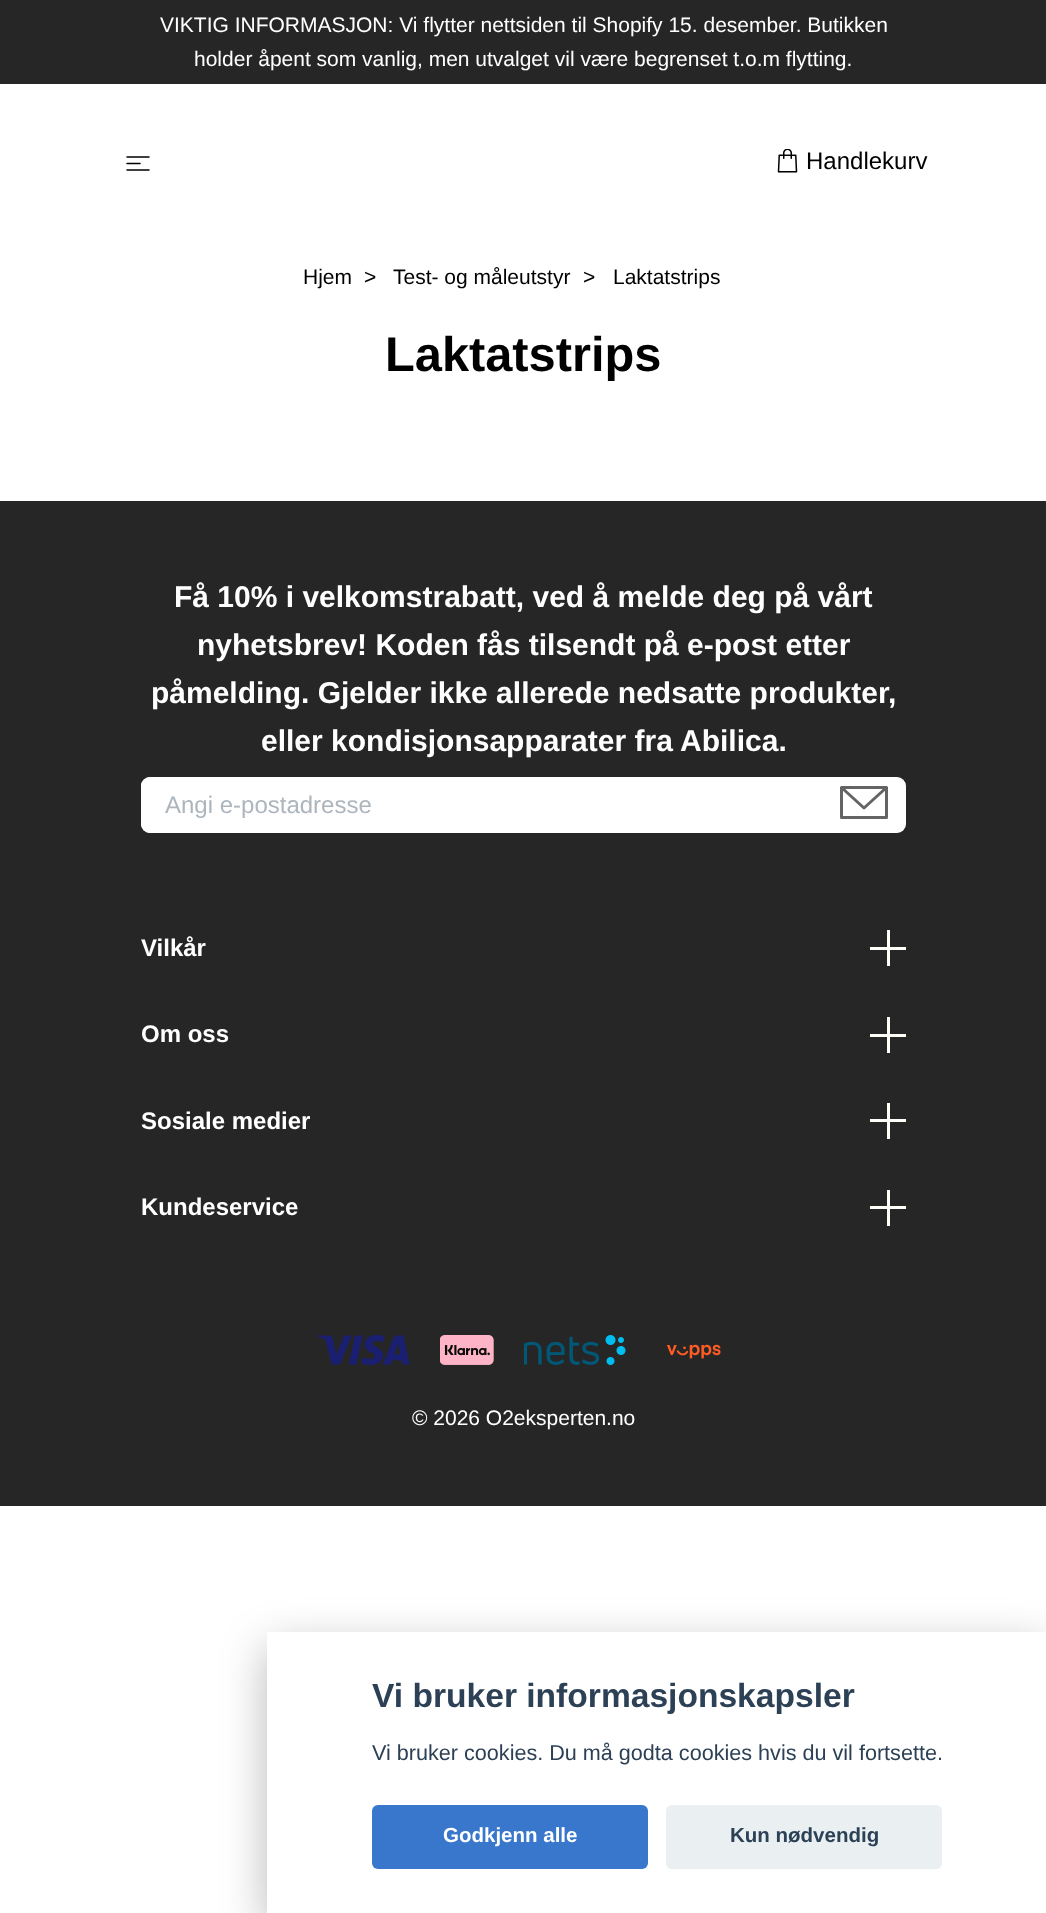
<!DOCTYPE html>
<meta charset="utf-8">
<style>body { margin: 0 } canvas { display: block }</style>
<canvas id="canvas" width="1046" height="1913"></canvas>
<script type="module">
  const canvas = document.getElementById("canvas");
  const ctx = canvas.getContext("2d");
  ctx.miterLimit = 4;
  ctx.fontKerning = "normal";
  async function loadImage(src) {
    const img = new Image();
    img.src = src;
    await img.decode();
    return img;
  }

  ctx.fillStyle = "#ffffff";
  ctx.fillRect(0, 0, 1046, 1913);
  ctx.fillStyle = "#262626";
  ctx.fillRect(0, 0, 1046, 84);
  ctx.font = "21px Liberation Sans";
  ctx.fillStyle = "#ffffff";
  ctx.fillText("VIKTIG INFORMASJON: Vi flytter nettsiden til Shopify 15. desember. Butikken", 160, 32);
  ctx.fillText("holder åpent som vanlig, men utvalget vil være begrenset t.o.m flytting.", 194, 66);
  ctx.beginPath();
  ctx.moveTo(127, 157);
  ctx.lineTo(149, 157);
  ctx.moveTo(127, 163.5);
  ctx.lineTo(140, 163.5);
  ctx.moveTo(127, 170);
  ctx.lineTo(149, 170);
  ctx.strokeStyle = "#000000";
  ctx.lineWidth = 1.5;
  ctx.lineCap = "round";
  ctx.lineJoin = "round";
  ctx.stroke();
  ctx.drawImage(await loadImage("img1.png"), 777, 149, 21, 24);
  ctx.font = "24px Liberation Sans";
  ctx.fillStyle = "#000000";
  ctx.fillText("Handlekurv", 806, 169);
  ctx.font = "21px Liberation Sans";
  ctx.fillText("Hjem", 303, 284);
  ctx.fillText(">", 364, 284);
  ctx.fillText("Test- og måleutstyr", 393, 284);
  ctx.fillText(">", 583, 284);
  ctx.fillText("Laktatstrips", 613, 284);
  ctx.font = "bold 48.75px Liberation Sans";
  ctx.fillText("Laktatstrips", 385, 371);
  ctx.fillStyle = "#262626";
  ctx.fillRect(0, 501, 1046, 1005);
  ctx.font = "bold 30px Liberation Sans";
  ctx.fillStyle = "#ffffff";
  ctx.fillText("Få 10% i velkomstrabatt, ved å melde deg på vårt", 174, 607);
  ctx.fillText("nyhetsbrev! Koden fås tilsendt på e-post etter", 197, 655);
  ctx.fillText("påmelding. Gjelder ikke allerede nedsatte produkter,", 151, 703);
  ctx.fillText("eller kondisjonsapparater fra Abilica.", 261, 751);
  ctx.beginPath();
  ctx.roundRect(141, 777, 765, 56, 9);
  ctx.fill();
  ctx.beginPath();
  ctx.roundRect(141, 777, 681, 56, [9, 0, 0, 9]);
  ctx.fill();
  ctx.font = "24px Liberation Sans";
  ctx.fillStyle = "#adb5bd";
  ctx.fillText("Angi e-postadresse", 165, 813);
  ctx.beginPath();
  ctx.moveTo(841.5, 787.5);
  ctx.lineTo(864, 808);
  ctx.lineTo(886.5, 787.5);
  ctx.moveTo(841.5, 787.5);
  ctx.lineTo(886.5, 787.5);
  ctx.lineTo(886.5, 817.5);
  ctx.lineTo(841.5, 817.5);
  ctx.closePath();
  ctx.strokeStyle = "#646464";
  ctx.lineWidth = 3;
  ctx.stroke();
  ctx.font = "bold 24px Liberation Sans";
  ctx.fillStyle = "#ffffff";
  ctx.fillText("Vilkår", 141, 956);
  ctx.fillStyle = "#fffffa";
  ctx.fillRect(887, 930, 3, 36);
  ctx.fillRect(870, 947, 36, 3);
  ctx.fillStyle = "#ffffff";
  ctx.fillText("Om oss", 141, 1042);
  ctx.fillStyle = "#fffffa";
  ctx.fillRect(887, 1017, 3, 36);
  ctx.fillRect(870, 1034, 36, 3);
  ctx.fillStyle = "#ffffff";
  ctx.fillText("Sosiale medier", 141, 1129);
  ctx.fillStyle = "#fffffa";
  ctx.fillRect(887, 1103, 3, 36);
  ctx.fillRect(870, 1119, 36, 3);
  ctx.fillStyle = "#ffffff";
  ctx.fillText("Kundeservice", 141, 1215);
  ctx.fillStyle = "#fffffa";
  ctx.fillRect(887, 1190, 3, 36);
  ctx.fillRect(870, 1206, 36, 3);
  ctx.drawImage(await loadImage("img2.png"), 317, 1335, 93, 30);
  ctx.drawImage(await loadImage("img3.png"), 440, 1335, 54, 30);
  ctx.drawImage(await loadImage("img4.png"), 524, 1335, 102, 30);
  ctx.drawImage(await loadImage("img5.png"), 667, 1344, 54, 15);
  ctx.font = "21px Liberation Sans";
  ctx.fillStyle = "#ffffff";
  ctx.fillText("© 2026 O2eksperten.no", 412, 1425);
  ctx.save();
  ctx.beginPath();
  ctx.moveTo(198, 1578);
  ctx.lineTo(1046, 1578);
  ctx.lineTo(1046, 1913);
  ctx.lineTo(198, 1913);
  ctx.closePath();
  ctx.moveTo(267, 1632);
  ctx.lineTo(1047, 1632);
  ctx.lineTo(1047, 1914);
  ctx.lineTo(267, 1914);
  ctx.closePath();
  ctx.clip("evenodd");
  ctx.fillStyle = "rgba(2, 2, 3, 0.28)";
  ctx.filter = "blur(22.5px)";
  ctx.beginPath();
  ctx.rect(267, 1647, 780, 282);
  ctx.fill();
  ctx.filter = "none";
  ctx.restore();
  ctx.font = "bold 33.6px Liberation Sans";
  ctx.fillStyle = "#2d4156";
  ctx.fillText("Vi bruker informasjonskapsler", 372, 1707);
  ctx.font = "21.6px Liberation Sans";
  ctx.fillText("Vi bruker cookies. Du må godta cookies hvis du vil fortsette.", 372, 1760);
  ctx.fillStyle = "#3877cb";
  ctx.beginPath();
  ctx.roundRect(372, 1805, 276, 64, 6);
  ctx.fill();
  ctx.font = "bold 20.5px Liberation Sans";
  ctx.fillStyle = "#ffffff";
  ctx.fillText("Godkjenn alle", 443, 1842);
  ctx.fillStyle = "#eaeff2";
  ctx.beginPath();
  ctx.roundRect(666, 1805, 276, 64, 6);
  ctx.fill();
  ctx.fillStyle = "#2d4156";
  ctx.fillText("Kun nødvendig", 730, 1842);
</script>
